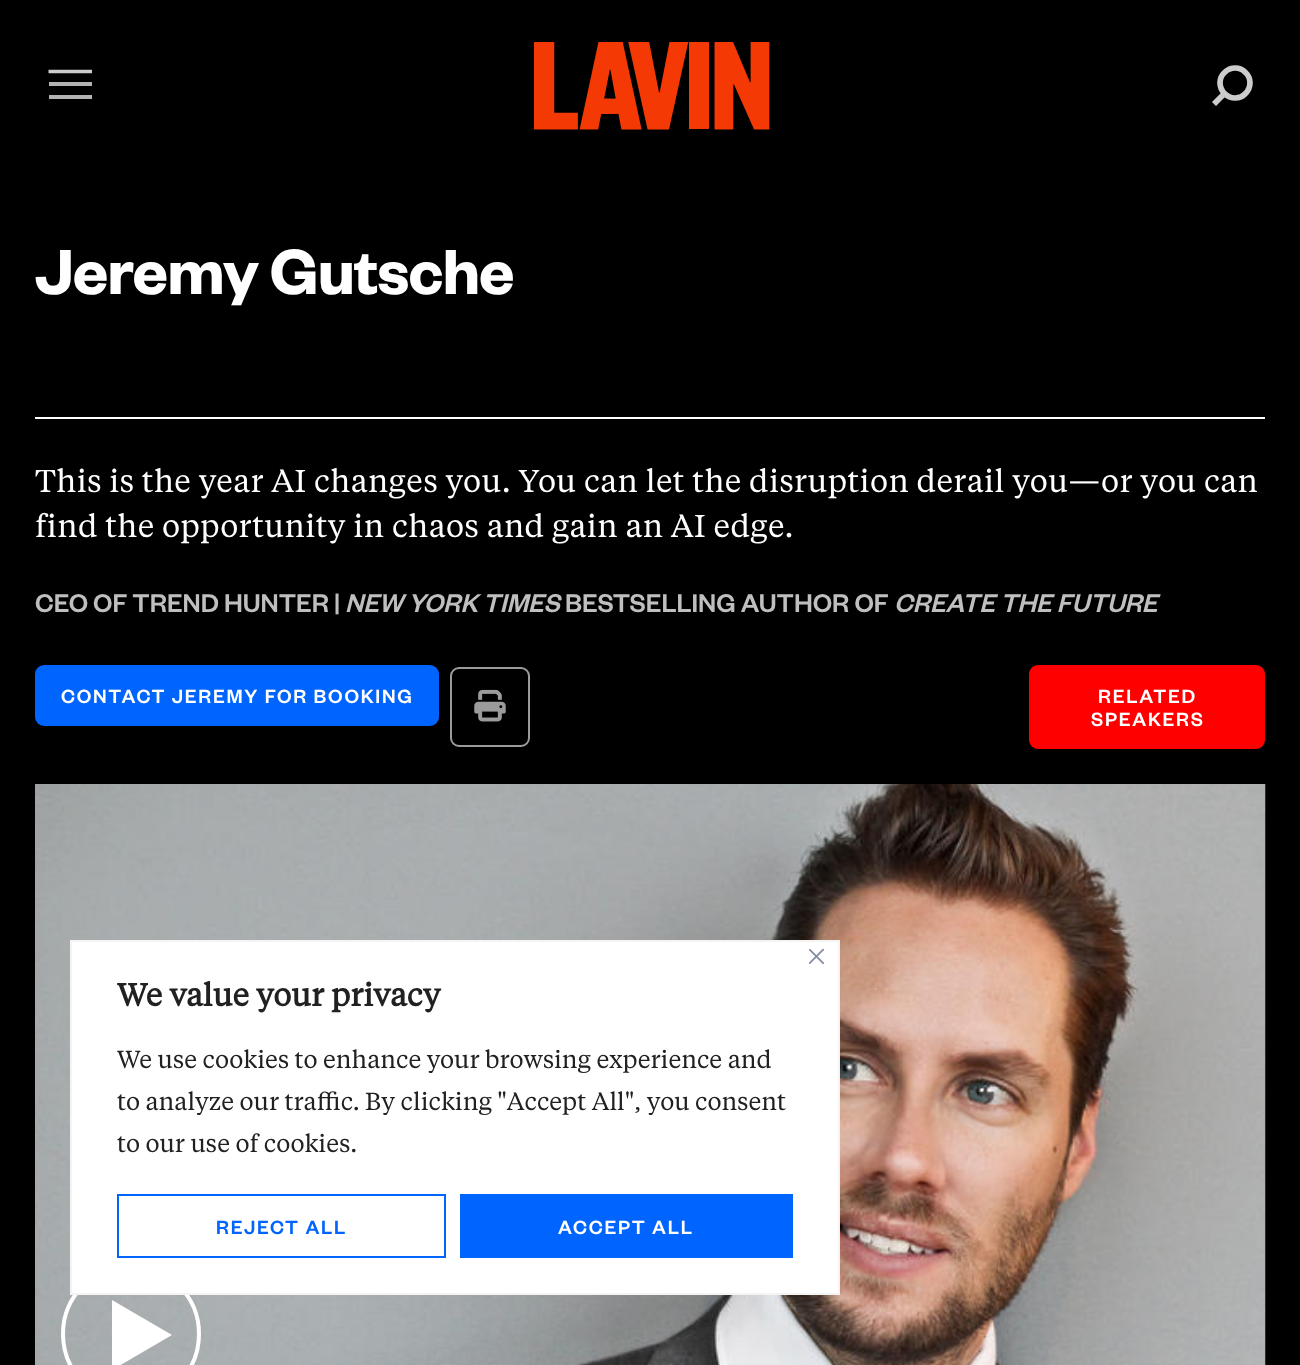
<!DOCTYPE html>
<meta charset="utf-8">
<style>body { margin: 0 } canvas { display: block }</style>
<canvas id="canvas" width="1300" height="1365"></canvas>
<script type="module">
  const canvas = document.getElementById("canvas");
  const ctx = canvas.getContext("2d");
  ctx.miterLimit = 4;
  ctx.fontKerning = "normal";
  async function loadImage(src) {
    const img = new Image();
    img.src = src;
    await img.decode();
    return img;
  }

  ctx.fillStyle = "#000000";
  ctx.fillRect(0, 0, 1300, 1365);
  ctx.beginPath();
  ctx.moveTo(48.5, 71.5);
  ctx.lineTo(92, 71.5);
  ctx.strokeStyle = "#cccccc";
  ctx.lineWidth = 3.5;
  ctx.stroke();
  ctx.fillStyle = "#b3b3b3";
  ctx.fillRect(49, 82, 43, 4);
  ctx.fillRect(49, 95, 43, 4);
  ctx.drawImage(await loadImage("img1.png"), 534, 42, 236, 88);
  ctx.beginPath();
  ctx.moveTo(1224.5, 93.5);
  ctx.bezierCurveTo(1230.5, 99.5, 1240, 99.5, 1245.5, 93.5);
  ctx.bezierCurveTo(1251.5, 87.5, 1251.5, 78, 1245.5, 72.5);
  ctx.bezierCurveTo(1240, 66.5, 1230.5, 66.5, 1224.5, 72.5);
  ctx.bezierCurveTo(1218.5, 78, 1218.5, 87.5, 1224.5, 93.5);
  ctx.lineTo(1214, 104);
  ctx.closePath();
  ctx.lineWidth = 5.7;
  ctx.stroke();
  ctx.letterSpacing = "-0.9px";
  ctx.font = "600 70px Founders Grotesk";
  ctx.fillStyle = "#ffffff";
  ctx.fillText("Jeremy Gutsche", 35, 294);
  ctx.fillRect(35, 417, 1230, 2);
  ctx.letterSpacing = "0.4px";
  ctx.font = "31.5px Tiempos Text";
  ctx.fillText("This is the year AI changes you. You can let the disruption derail you—or you can", 35, 492);
  ctx.fillText("find the opportunity in chaos and gain an AI edge.", 35, 537);
  ctx.letterSpacing = "0px";
  ctx.font = "500 28px Founders Grotesk";
  ctx.fillStyle = "#bfbfbf";
  ctx.fillText("CEO OF TREND HUNTER |", 35, 612);
  ctx.font = "italic 500 28px Founders Grotesk";
  ctx.fillText("NEW YORK TIMES", 345, 612);
  ctx.font = "500 28px Founders Grotesk";
  ctx.fillText("BESTSELLING AUTHOR OF", 565, 612);
  ctx.font = "italic 500 28px Founders Grotesk";
  ctx.fillText("CREATE THE FUTURE", 894, 612);
  ctx.fillStyle = "#0064ff";
  ctx.beginPath();
  ctx.roundRect(35, 665, 404, 61, 9);
  ctx.fill();
  ctx.letterSpacing = "1.75px";
  ctx.font = "500 21px Founders Grotesk";
  ctx.fillStyle = "#ffffff";
  ctx.fillText("CONTACT JEREMY FOR BOOKING", 61, 703);
  ctx.beginPath();
  ctx.roundRect(451, 668, 78, 78, 8);
  ctx.strokeStyle = "#9b9b9b";
  ctx.lineWidth = 2;
  ctx.stroke();
  ctx.drawImage(await loadImage("img2.png"), 474, 689, 32, 33);
  ctx.fillStyle = "#ff0000";
  ctx.beginPath();
  ctx.roundRect(1029, 665, 236, 84, 9);
  ctx.fill();
  ctx.fillStyle = "#ffffff";
  ctx.fillText("RELATED", 1098, 703);
  ctx.fillText("SPEAKERS", 1091, 726);
  ctx.drawImage(await loadImage("img3.png"), 35, 784, 1231, 581);
  ctx.beginPath();
  ctx.arc(131, 1334, 68, 0, Math.PI * 2);
  ctx.strokeStyle = "#ffffff";
  ctx.lineWidth = 4;
  ctx.stroke();
  ctx.beginPath();
  ctx.moveTo(112, 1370);
  ctx.lineTo(112, 1300);
  ctx.lineTo(172, 1335);
  ctx.closePath();
  ctx.fill();
  ctx.beginPath();
  ctx.rect(71, 941, 768, 353);
  ctx.fill();
  ctx.strokeStyle = "#f4f4f4";
  ctx.lineWidth = 2;
  ctx.stroke();
  ctx.drawImage(await loadImage("img4.png"), 809, 949, 15, 15);
  ctx.letterSpacing = "0px";
  ctx.font = "bold 31.5px Tiempos Text";
  ctx.fillStyle = "#212121";
  ctx.fillText("We value your privacy", 117, 1006);
  ctx.font = "24.5px Tiempos Text";
  ctx.fillText("We use cookies to enhance your browsing experience and", 117, 1068);
  ctx.fillText("to analyze our traffic. By clicking \"Accept All\", you consent", 117, 1110);
  ctx.fillText("to our use of cookies.", 117, 1152);
  ctx.strokeStyle = "#0064ff";
  ctx.strokeRect(118, 1195, 327, 62);
  ctx.letterSpacing = "1.75px";
  ctx.font = "500 21px Founders Grotesk";
  ctx.fillStyle = "#0064ff";
  ctx.fillText("REJECT ALL", 216, 1234);
  ctx.fillRect(460, 1194, 333, 64);
  ctx.fillStyle = "#ffffff";
  ctx.fillText("ACCEPT ALL", 558, 1234);
</script>
